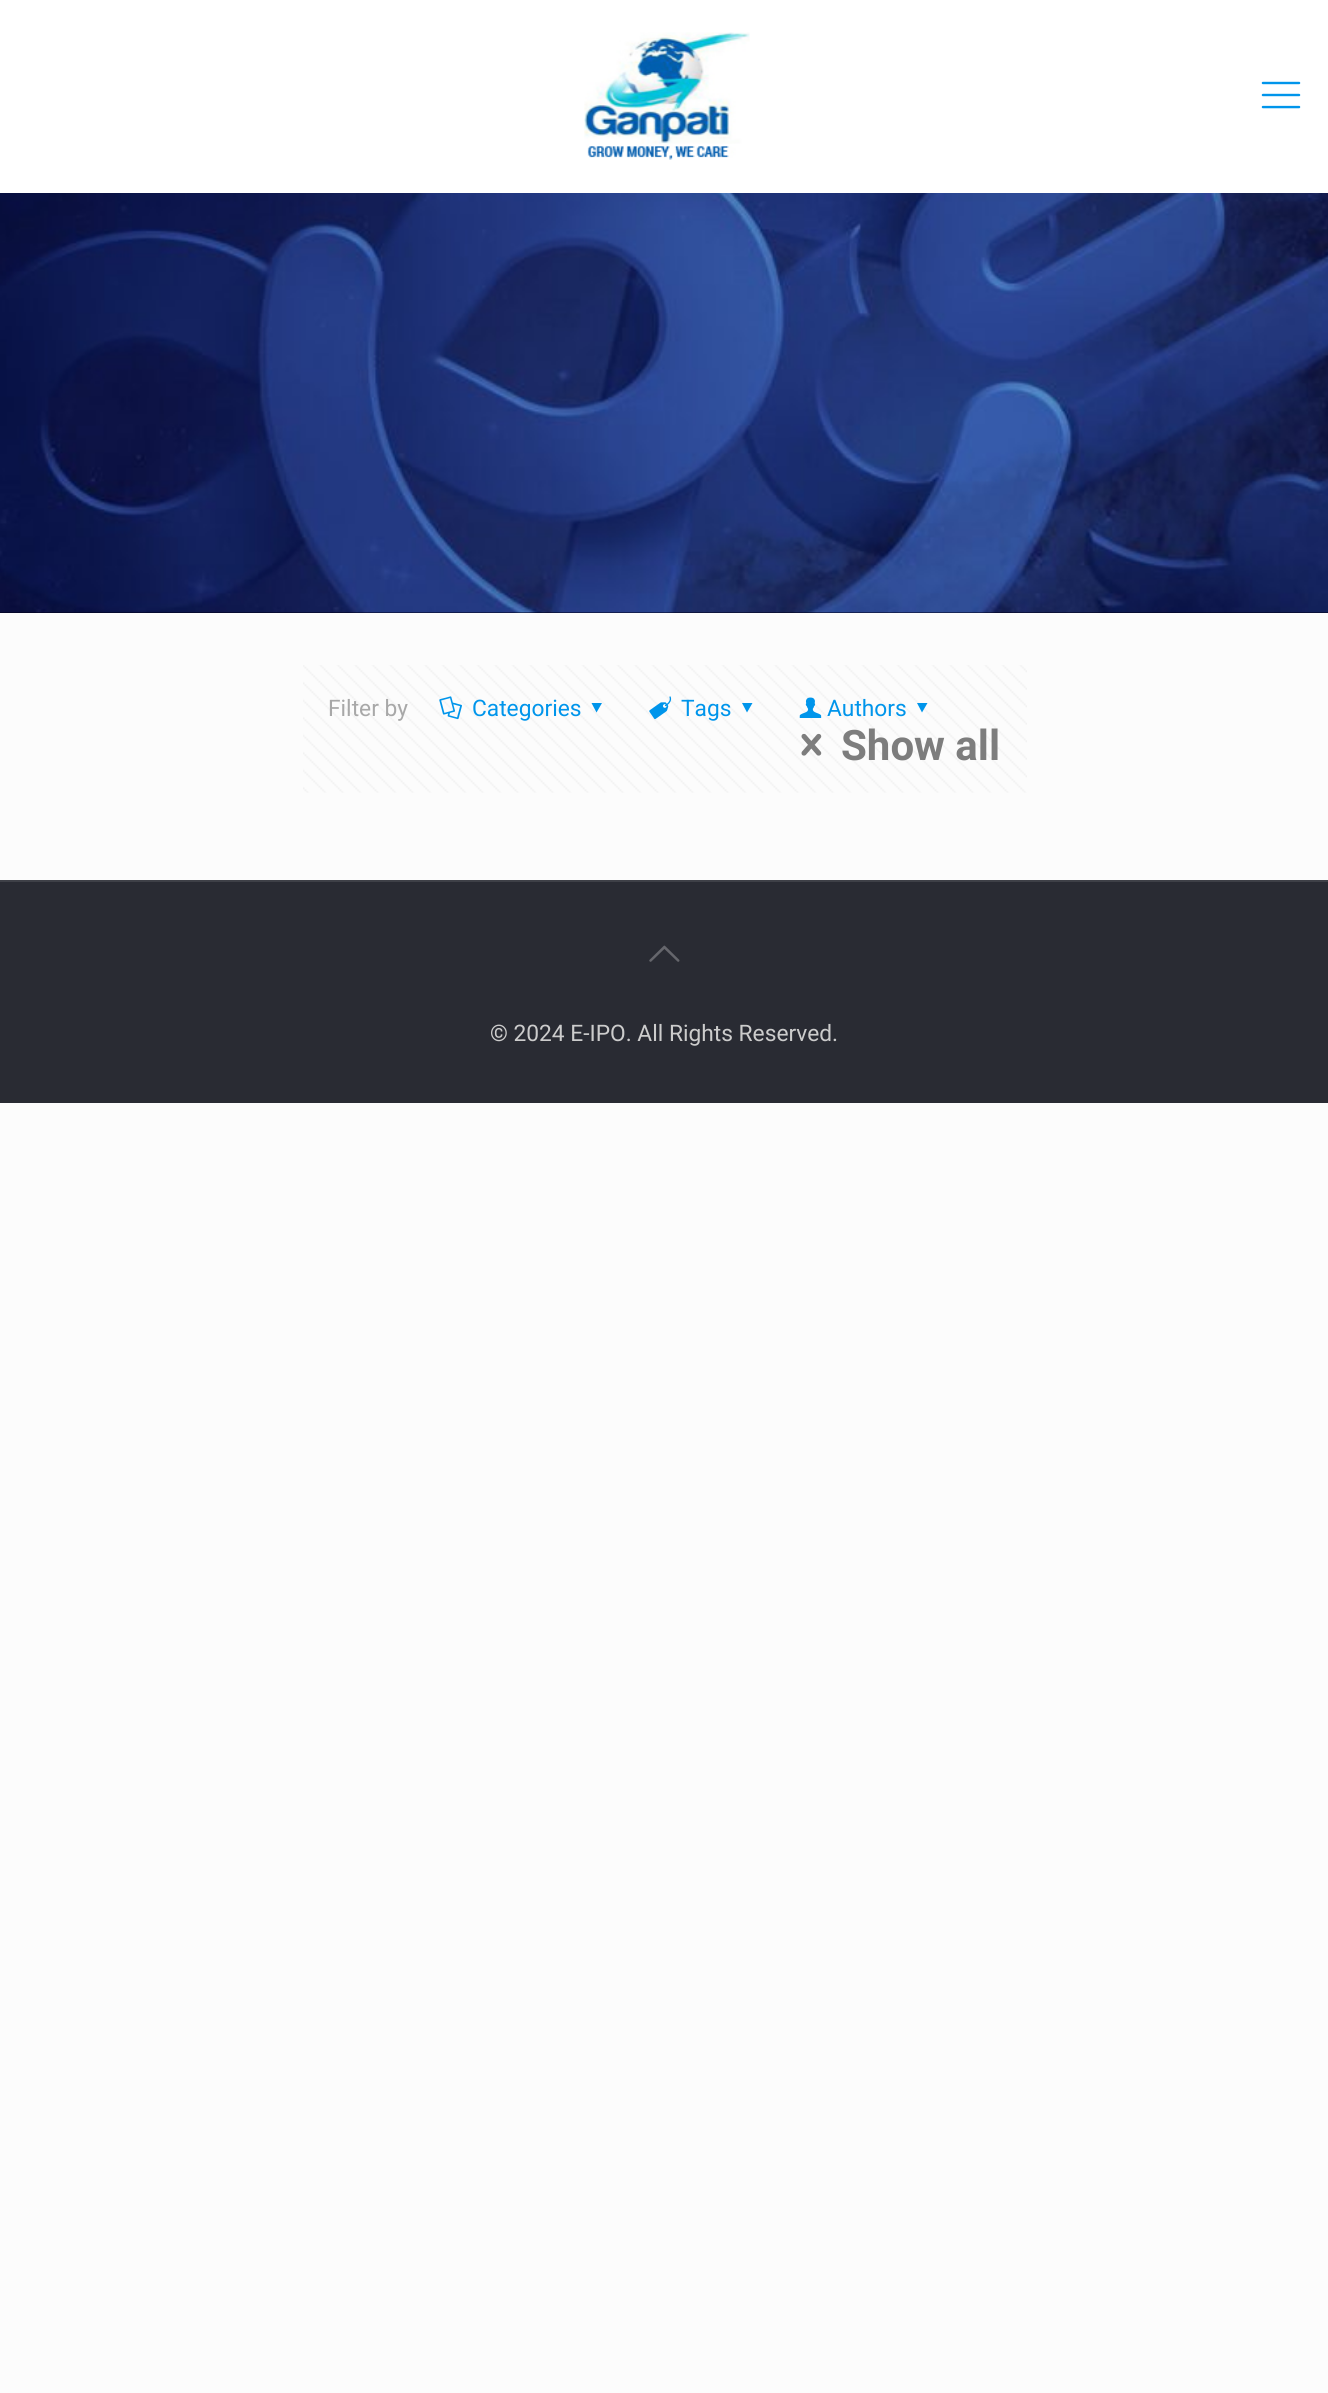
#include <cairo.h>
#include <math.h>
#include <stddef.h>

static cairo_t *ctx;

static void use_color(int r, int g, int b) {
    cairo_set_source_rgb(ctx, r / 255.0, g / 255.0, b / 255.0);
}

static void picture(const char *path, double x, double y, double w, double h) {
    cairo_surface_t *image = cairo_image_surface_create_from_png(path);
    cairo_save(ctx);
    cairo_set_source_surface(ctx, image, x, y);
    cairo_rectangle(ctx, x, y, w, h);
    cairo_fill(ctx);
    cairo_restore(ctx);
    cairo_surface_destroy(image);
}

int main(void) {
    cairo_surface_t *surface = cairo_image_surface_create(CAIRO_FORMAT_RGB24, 1328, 2393);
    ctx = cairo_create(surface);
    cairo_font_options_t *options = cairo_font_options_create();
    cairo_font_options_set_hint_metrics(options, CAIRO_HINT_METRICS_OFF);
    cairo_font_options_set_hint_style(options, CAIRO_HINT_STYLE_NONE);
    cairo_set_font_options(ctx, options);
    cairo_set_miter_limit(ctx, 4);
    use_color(252, 252, 252);
    cairo_paint(ctx);
    use_color(0, 1, 25);
    cairo_rectangle(ctx, 0, 612, 1328, 1);
    cairo_fill(ctx);
    picture("img1.png", 0, 193, 1328, 420);
    use_color(255, 255, 255);
    cairo_rectangle(ctx, 0, 0, 1328, 193);
    cairo_fill(ctx);
    picture("img2.png", 584, 32, 166, 128);
    picture("img3.png", 1261, 81, 40, 28);
    picture("img4.png", 303, 665, 724, 128);
    cairo_select_font_face(ctx, "Roboto", CAIRO_FONT_SLANT_NORMAL, CAIRO_FONT_WEIGHT_NORMAL);
    cairo_set_font_size(ctx, 22.75);
    use_color(168, 168, 168);
    cairo_move_to(ctx, 328, 716);
    cairo_show_text(ctx, "Filter by");
    picture("img5.png", 439, 696, 23, 24);
    use_color(0, 149, 235);
    cairo_move_to(ctx, 472, 716);
    cairo_show_text(ctx, "Categories");
    cairo_new_path(ctx);
    cairo_move_to(ctx, 602, 703);
    cairo_line_to(ctx, 596.5, 712.5);
    cairo_line_to(ctx, 591.5, 703);
    cairo_close_path(ctx);
    cairo_fill(ctx);
    picture("img6.png", 649, 696, 23, 24);
    cairo_move_to(ctx, 681, 716);
    cairo_show_text(ctx, "Tags");
    cairo_new_path(ctx);
    cairo_move_to(ctx, 752.5, 703);
    cairo_line_to(ctx, 747, 712.5);
    cairo_line_to(ctx, 742, 703);
    cairo_close_path(ctx);
    cairo_fill(ctx);
    picture("img7.png", 799, 697, 23, 21);
    cairo_move_to(ctx, 827, 716);
    cairo_show_text(ctx, "Authors");
    cairo_new_path(ctx);
    cairo_move_to(ctx, 927.5, 703);
    cairo_line_to(ctx, 922, 712.5);
    cairo_line_to(ctx, 917, 703);
    cairo_close_path(ctx);
    cairo_fill(ctx);
    picture("img8.png", 801, 733, 21, 23);
    cairo_select_font_face(ctx, "Roboto", CAIRO_FONT_SLANT_NORMAL, CAIRO_FONT_WEIGHT_BOLD);
    cairo_set_font_size(ctx, 42);
    use_color(125, 125, 125);
    cairo_move_to(ctx, 841, 760);
    cairo_show_text(ctx, "Show all");
    use_color(41, 43, 51);
    cairo_rectangle(ctx, 0, 882, 1328, 221);
    cairo_fill(ctx);
    use_color(62, 64, 71);
    cairo_rectangle(ctx, 0, 880, 1328, 2);
    cairo_fill(ctx);
    picture("img9.png", 649, 945, 31, 17);
    cairo_select_font_face(ctx, "Roboto", CAIRO_FONT_SLANT_NORMAL, CAIRO_FONT_WEIGHT_NORMAL);
    cairo_set_font_size(ctx, 22.75);
    use_color(204, 204, 204);
    cairo_move_to(ctx, 490, 1041);
    cairo_show_text(ctx, "© 2024 E-IPO. All Rights Reserved.");
    cairo_surface_write_to_png(surface, "result.png");
    cairo_font_options_destroy(options);
    cairo_destroy(ctx);
    cairo_surface_destroy(surface);
    return 0;
}
